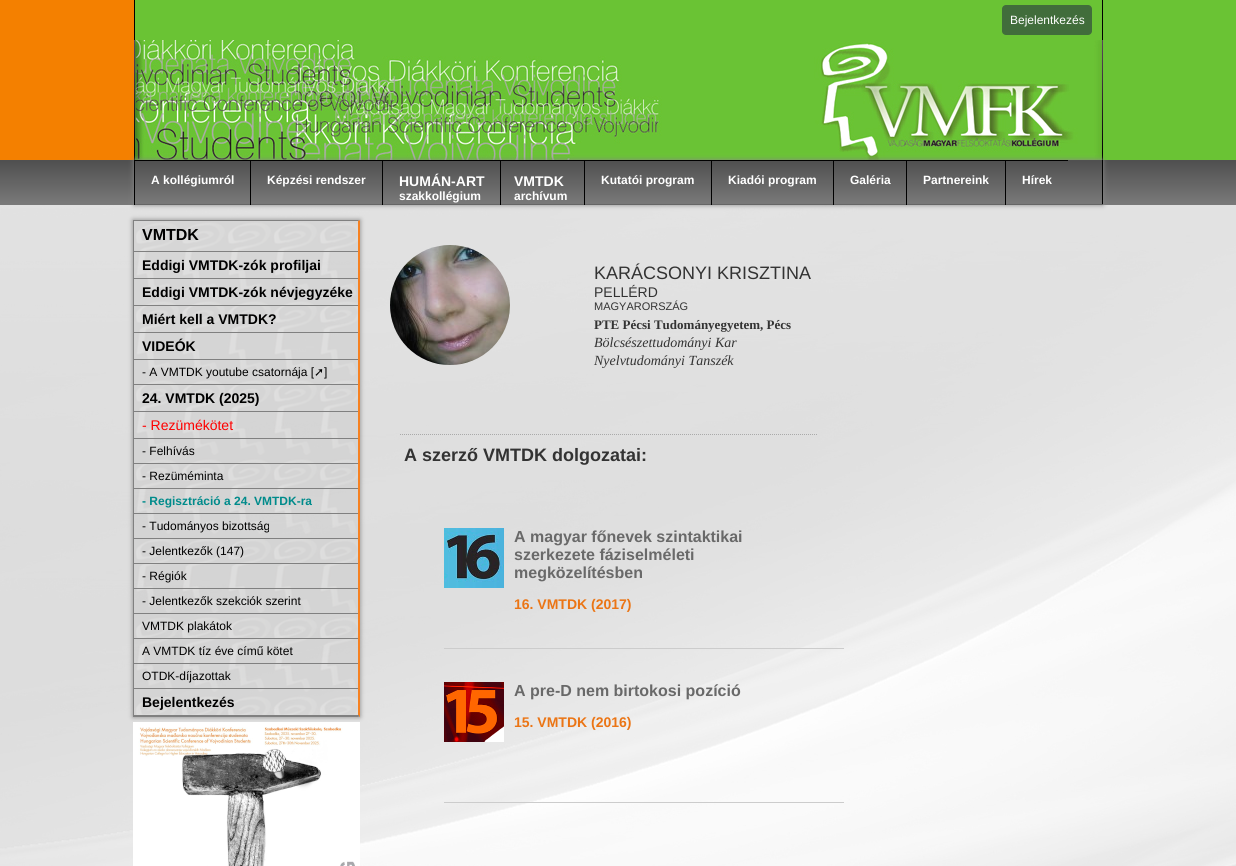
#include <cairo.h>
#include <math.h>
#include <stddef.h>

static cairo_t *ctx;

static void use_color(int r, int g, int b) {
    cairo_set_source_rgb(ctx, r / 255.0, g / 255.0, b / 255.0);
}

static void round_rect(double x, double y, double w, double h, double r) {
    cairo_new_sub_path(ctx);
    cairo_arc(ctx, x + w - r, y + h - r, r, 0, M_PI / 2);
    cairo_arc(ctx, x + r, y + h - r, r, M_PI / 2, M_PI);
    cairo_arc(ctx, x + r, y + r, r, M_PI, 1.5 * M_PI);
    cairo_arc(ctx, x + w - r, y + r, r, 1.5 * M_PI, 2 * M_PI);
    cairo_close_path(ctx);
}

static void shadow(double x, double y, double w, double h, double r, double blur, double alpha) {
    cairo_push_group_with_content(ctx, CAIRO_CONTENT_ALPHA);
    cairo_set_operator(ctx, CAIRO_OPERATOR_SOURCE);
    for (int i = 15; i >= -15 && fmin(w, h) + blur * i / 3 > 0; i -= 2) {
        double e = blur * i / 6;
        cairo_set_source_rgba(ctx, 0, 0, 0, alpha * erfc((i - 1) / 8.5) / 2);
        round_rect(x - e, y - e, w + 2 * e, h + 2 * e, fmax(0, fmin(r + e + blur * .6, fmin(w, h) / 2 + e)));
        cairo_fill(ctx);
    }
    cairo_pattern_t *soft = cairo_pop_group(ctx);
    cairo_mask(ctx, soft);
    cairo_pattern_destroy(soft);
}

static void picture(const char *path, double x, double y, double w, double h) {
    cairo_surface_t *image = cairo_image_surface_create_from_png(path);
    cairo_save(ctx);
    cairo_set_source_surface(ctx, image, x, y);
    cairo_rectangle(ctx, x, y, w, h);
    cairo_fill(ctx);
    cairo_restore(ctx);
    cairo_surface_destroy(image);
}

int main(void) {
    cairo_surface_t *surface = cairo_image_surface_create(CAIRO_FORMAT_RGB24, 1236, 866);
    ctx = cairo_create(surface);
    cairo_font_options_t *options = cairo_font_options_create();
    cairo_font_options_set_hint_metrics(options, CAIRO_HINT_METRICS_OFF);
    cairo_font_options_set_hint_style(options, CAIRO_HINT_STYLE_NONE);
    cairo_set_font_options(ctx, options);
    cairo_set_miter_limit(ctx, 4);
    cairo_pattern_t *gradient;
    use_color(255, 255, 255);
    cairo_paint(ctx);
    picture("img1.png", 0, 205, 1236, 661);
    use_color(244, 128, 0);
    cairo_rectangle(ctx, 0, 0, 134, 40);
    cairo_fill(ctx);
    use_color(106, 195, 52);
    cairo_rectangle(ctx, 135, 0, 967, 40);
    cairo_fill(ctx);
    use_color(0, 0, 0);
    cairo_rectangle(ctx, 1102, 0, 1, 40);
    cairo_fill(ctx);
    cairo_rectangle(ctx, 134, 0, 1, 40);
    cairo_fill(ctx);
    use_color(65, 109, 59);
    round_rect(1002, 5, 90, 30, 4);
    cairo_fill(ctx);
    cairo_select_font_face(ctx, "Liberation Sans", CAIRO_FONT_SLANT_NORMAL, CAIRO_FONT_WEIGHT_NORMAL);
    cairo_set_font_size(ctx, 12);
    use_color(255, 255, 255);
    cairo_move_to(ctx, 1010, 24);
    cairo_show_text(ctx, "Bejelentkezés");
    use_color(106, 195, 52);
    cairo_rectangle(ctx, 1103, 0, 133, 40);
    cairo_fill(ctx);
    picture("img2.png", 0, 40, 1236, 120);
    picture("img3.png", 134, 40, 969, 120);
    gradient = cairo_pattern_create_linear(618, 160, 618, 205);
    cairo_pattern_add_color_stop_rgba(gradient, 0, 0.31, 0.31, 0.31, 1);
    cairo_pattern_add_color_stop_rgba(gradient, 1, 0.478, 0.478, 0.478, 1);
    cairo_set_source(ctx, gradient);
    cairo_pattern_destroy(gradient);
    cairo_rectangle(ctx, 0, 160, 1236, 45);
    cairo_fill(ctx);
    cairo_save(ctx);
    cairo_set_fill_rule(ctx, CAIRO_FILL_RULE_EVEN_ODD);
    cairo_new_path(ctx);
    cairo_move_to(ctx, 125, 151);
    cairo_line_to(ctx, 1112, 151);
    cairo_line_to(ctx, 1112, 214);
    cairo_line_to(ctx, 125, 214);
    cairo_close_path(ctx);
    cairo_move_to(ctx, 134, 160);
    cairo_line_to(ctx, 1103, 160);
    cairo_line_to(ctx, 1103, 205);
    cairo_line_to(ctx, 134, 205);
    cairo_close_path(ctx);
    cairo_clip(ctx);
    use_color(136, 136, 136);
    shadow(134, 160, 969, 45, 0, 2.5, 1);
    cairo_restore(ctx);
    use_color(0, 0, 0);
    cairo_rectangle(ctx, 1102, 160, 1, 45);
    cairo_fill(ctx);
    use_color(102, 102, 102);
    cairo_rectangle(ctx, 134, 204, 969, 1);
    cairo_fill(ctx);
    use_color(0, 0, 0);
    cairo_rectangle(ctx, 134, 160, 1, 45);
    cairo_fill(ctx);
    cairo_rectangle(ctx, 135, 160, 933, 1);
    cairo_fill(ctx);
    cairo_select_font_face(ctx, "Liberation Sans", CAIRO_FONT_SLANT_NORMAL, CAIRO_FONT_WEIGHT_BOLD);
    use_color(255, 255, 255);
    cairo_move_to(ctx, 151, 184);
    cairo_show_text(ctx, "A kollégiumról");
    use_color(0, 0, 0);
    cairo_rectangle(ctx, 250, 160, 1, 45);
    cairo_fill(ctx);
    use_color(255, 255, 255);
    cairo_move_to(ctx, 267, 184);
    cairo_show_text(ctx, "Képzési rendszer");
    use_color(0, 0, 0);
    cairo_rectangle(ctx, 382, 160, 1, 45);
    cairo_fill(ctx);
    cairo_set_font_size(ctx, 14);
    use_color(255, 255, 255);
    cairo_move_to(ctx, 399, 186);
    cairo_show_text(ctx, "HUMÁN-ART");
    cairo_set_font_size(ctx, 12);
    cairo_move_to(ctx, 399, 200);
    cairo_show_text(ctx, "szakkollégium");
    use_color(0, 0, 0);
    cairo_rectangle(ctx, 500, 160, 1, 45);
    cairo_fill(ctx);
    cairo_set_font_size(ctx, 14);
    use_color(255, 255, 255);
    cairo_move_to(ctx, 514, 186);
    cairo_show_text(ctx, "VMTDK");
    cairo_set_font_size(ctx, 12);
    cairo_move_to(ctx, 514, 200);
    cairo_show_text(ctx, "archívum");
    use_color(0, 0, 0);
    cairo_rectangle(ctx, 584, 160, 1, 45);
    cairo_fill(ctx);
    use_color(255, 255, 255);
    cairo_move_to(ctx, 601, 184);
    cairo_show_text(ctx, "Kutatói program");
    use_color(0, 0, 0);
    cairo_rectangle(ctx, 711, 160, 1, 45);
    cairo_fill(ctx);
    use_color(255, 255, 255);
    cairo_move_to(ctx, 728, 184);
    cairo_show_text(ctx, "Kiadói program");
    use_color(0, 0, 0);
    cairo_rectangle(ctx, 833, 160, 1, 45);
    cairo_fill(ctx);
    use_color(255, 255, 255);
    cairo_move_to(ctx, 850, 184);
    cairo_show_text(ctx, "Galéria");
    use_color(0, 0, 0);
    cairo_rectangle(ctx, 906, 160, 1, 45);
    cairo_fill(ctx);
    use_color(255, 255, 255);
    cairo_move_to(ctx, 923, 184);
    cairo_show_text(ctx, "Partnereink");
    use_color(0, 0, 0);
    cairo_rectangle(ctx, 1005, 160, 1, 45);
    cairo_fill(ctx);
    use_color(255, 255, 255);
    cairo_move_to(ctx, 1022, 184);
    cairo_show_text(ctx, "Hírek");
    cairo_save(ctx);
    cairo_set_fill_rule(ctx, CAIRO_FILL_RULE_EVEN_ODD);
    cairo_new_path(ctx);
    cairo_move_to(ctx, 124, 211);
    cairo_line_to(ctx, 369, 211);
    cairo_line_to(ctx, 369, 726);
    cairo_line_to(ctx, 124, 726);
    cairo_close_path(ctx);
    cairo_move_to(ctx, 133, 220);
    cairo_line_to(ctx, 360, 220);
    cairo_line_to(ctx, 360, 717);
    cairo_line_to(ctx, 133, 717);
    cairo_close_path(ctx);
    cairo_clip(ctx);
    use_color(136, 136, 136);
    shadow(133, 220, 227, 497, 0, 2.5, 1);
    cairo_restore(ctx);
    picture("img4.png", 134, 220, 226, 497);
    use_color(128, 128, 128);
    cairo_new_path(ctx);
    cairo_move_to(ctx, 133, 220);
    cairo_line_to(ctx, 360, 220);
    cairo_line_to(ctx, 358, 221);
    cairo_line_to(ctx, 134, 221);
    cairo_close_path(ctx);
    cairo_fill(ctx);
    use_color(246, 129, 33);
    cairo_new_path(ctx);
    cairo_move_to(ctx, 360, 220);
    cairo_line_to(ctx, 360, 717);
    cairo_line_to(ctx, 358, 716);
    cairo_line_to(ctx, 358, 221);
    cairo_close_path(ctx);
    cairo_fill(ctx);
    use_color(128, 128, 128);
    cairo_new_path(ctx);
    cairo_move_to(ctx, 360, 717);
    cairo_line_to(ctx, 133, 717);
    cairo_line_to(ctx, 134, 716);
    cairo_line_to(ctx, 358, 716);
    cairo_close_path(ctx);
    cairo_fill(ctx);
    cairo_rectangle(ctx, 133, 220, 1, 497);
    cairo_fill(ctx);
    cairo_set_font_size(ctx, 16);
    use_color(0, 0, 0);
    cairo_move_to(ctx, 142, 240);
    cairo_show_text(ctx, "VMTDK");
    use_color(128, 128, 128);
    cairo_rectangle(ctx, 134, 715, 225, 1);
    cairo_fill(ctx);
    cairo_rectangle(ctx, 134, 251, 224, 1);
    cairo_fill(ctx);
    cairo_set_font_size(ctx, 14);
    use_color(0, 0, 0);
    cairo_move_to(ctx, 142, 270);
    cairo_show_text(ctx, "Eddigi VMTDK-zók profiljai");
    use_color(128, 128, 128);
    cairo_rectangle(ctx, 134, 278, 224, 1);
    cairo_fill(ctx);
    use_color(0, 0, 0);
    cairo_move_to(ctx, 142, 297);
    cairo_show_text(ctx, "Eddigi VMTDK-zók névjegyzéke");
    use_color(128, 128, 128);
    cairo_rectangle(ctx, 134, 305, 224, 1);
    cairo_fill(ctx);
    use_color(0, 0, 0);
    cairo_move_to(ctx, 142, 324);
    cairo_show_text(ctx, "Miért kell a VMTDK?");
    use_color(128, 128, 128);
    cairo_rectangle(ctx, 134, 332, 224, 1);
    cairo_fill(ctx);
    use_color(0, 0, 0);
    cairo_move_to(ctx, 142, 351);
    cairo_show_text(ctx, "VIDEÓK");
    use_color(128, 128, 128);
    cairo_rectangle(ctx, 134, 359, 224, 1);
    cairo_fill(ctx);
    cairo_select_font_face(ctx, "Liberation Sans", CAIRO_FONT_SLANT_NORMAL, CAIRO_FONT_WEIGHT_NORMAL);
    cairo_set_font_size(ctx, 12);
    use_color(0, 0, 0);
    cairo_move_to(ctx, 142, 376);
    cairo_show_text(ctx, "- A VMTDK youtube csatornája [");
    cairo_select_font_face(ctx, "DejaVu Sans", CAIRO_FONT_SLANT_NORMAL, CAIRO_FONT_WEIGHT_NORMAL);
    cairo_move_to(ctx, 314, 376);
    cairo_show_text(ctx, "➚");
    cairo_select_font_face(ctx, "Liberation Sans", CAIRO_FONT_SLANT_NORMAL, CAIRO_FONT_WEIGHT_NORMAL);
    cairo_move_to(ctx, 324, 376);
    cairo_show_text(ctx, "]");
    use_color(128, 128, 128);
    cairo_rectangle(ctx, 134, 384, 224, 1);
    cairo_fill(ctx);
    cairo_select_font_face(ctx, "Liberation Sans", CAIRO_FONT_SLANT_NORMAL, CAIRO_FONT_WEIGHT_BOLD);
    cairo_set_font_size(ctx, 14);
    use_color(0, 0, 0);
    cairo_move_to(ctx, 142, 403);
    cairo_show_text(ctx, "24. VMTDK (2025)");
    use_color(128, 128, 128);
    cairo_rectangle(ctx, 134, 411, 224, 1);
    cairo_fill(ctx);
    cairo_select_font_face(ctx, "Liberation Sans", CAIRO_FONT_SLANT_NORMAL, CAIRO_FONT_WEIGHT_NORMAL);
    use_color(255, 0, 0);
    cairo_move_to(ctx, 142, 430);
    cairo_show_text(ctx, "- Rezümékötet");
    use_color(128, 128, 128);
    cairo_rectangle(ctx, 134, 438, 224, 1);
    cairo_fill(ctx);
    cairo_set_font_size(ctx, 12);
    use_color(0, 0, 0);
    cairo_move_to(ctx, 142, 455);
    cairo_show_text(ctx, "- Felhívás");
    use_color(128, 128, 128);
    cairo_rectangle(ctx, 134, 463, 224, 1);
    cairo_fill(ctx);
    use_color(0, 0, 0);
    cairo_move_to(ctx, 142, 480);
    cairo_show_text(ctx, "- Rezüméminta");
    use_color(128, 128, 128);
    cairo_rectangle(ctx, 134, 488, 224, 1);
    cairo_fill(ctx);
    cairo_select_font_face(ctx, "Liberation Sans", CAIRO_FONT_SLANT_NORMAL, CAIRO_FONT_WEIGHT_BOLD);
    use_color(0, 139, 139);
    cairo_move_to(ctx, 142, 505);
    cairo_show_text(ctx, "- Regisztráció a 24. VMTDK-ra");
    use_color(128, 128, 128);
    cairo_rectangle(ctx, 134, 513, 224, 1);
    cairo_fill(ctx);
    cairo_select_font_face(ctx, "Liberation Sans", CAIRO_FONT_SLANT_NORMAL, CAIRO_FONT_WEIGHT_NORMAL);
    use_color(0, 0, 0);
    cairo_move_to(ctx, 142, 530);
    cairo_show_text(ctx, "- Tudományos bizottság");
    use_color(128, 128, 128);
    cairo_rectangle(ctx, 134, 538, 224, 1);
    cairo_fill(ctx);
    use_color(0, 0, 0);
    cairo_move_to(ctx, 142, 555);
    cairo_show_text(ctx, "- Jelentkezők (147)");
    use_color(128, 128, 128);
    cairo_rectangle(ctx, 134, 563, 224, 1);
    cairo_fill(ctx);
    use_color(0, 0, 0);
    cairo_move_to(ctx, 142, 580);
    cairo_show_text(ctx, "- Régiók");
    use_color(128, 128, 128);
    cairo_rectangle(ctx, 134, 588, 224, 1);
    cairo_fill(ctx);
    use_color(0, 0, 0);
    cairo_move_to(ctx, 142, 605);
    cairo_show_text(ctx, "- Jelentkezők szekciók szerint");
    use_color(128, 128, 128);
    cairo_rectangle(ctx, 134, 613, 224, 1);
    cairo_fill(ctx);
    use_color(0, 0, 0);
    cairo_move_to(ctx, 142, 630);
    cairo_show_text(ctx, "VMTDK plakátok");
    use_color(128, 128, 128);
    cairo_rectangle(ctx, 134, 638, 224, 1);
    cairo_fill(ctx);
    use_color(0, 0, 0);
    cairo_move_to(ctx, 142, 655);
    cairo_show_text(ctx, "A VMTDK tíz éve című kötet");
    use_color(128, 128, 128);
    cairo_rectangle(ctx, 134, 663, 224, 1);
    cairo_fill(ctx);
    use_color(0, 0, 0);
    cairo_move_to(ctx, 142, 680);
    cairo_show_text(ctx, "OTDK-díjazottak");
    use_color(128, 128, 128);
    cairo_rectangle(ctx, 134, 688, 224, 1);
    cairo_fill(ctx);
    cairo_select_font_face(ctx, "Liberation Sans", CAIRO_FONT_SLANT_NORMAL, CAIRO_FONT_WEIGHT_BOLD);
    cairo_set_font_size(ctx, 14);
    use_color(0, 0, 0);
    cairo_move_to(ctx, 142, 707);
    cairo_show_text(ctx, "Bejelentkezés");
    picture("img5.png", 133, 722, 227, 144);
    picture("img6.png", 390, 245, 120, 120);
    cairo_select_font_face(ctx, "Liberation Sans", CAIRO_FONT_SLANT_NORMAL, CAIRO_FONT_WEIGHT_NORMAL);
    cairo_set_font_size(ctx, 18);
    use_color(51, 51, 51);
    cairo_move_to(ctx, 594, 279);
    cairo_show_text(ctx, "KARÁCSONYI KRISZTINA");
    cairo_set_font_size(ctx, 14);
    cairo_move_to(ctx, 594, 297);
    cairo_show_text(ctx, "PELLÉRD");
    cairo_set_font_size(ctx, 11);
    cairo_move_to(ctx, 594, 310);
    cairo_show_text(ctx, "MAGYARORSZÁG");
    cairo_select_font_face(ctx, "Liberation Serif", CAIRO_FONT_SLANT_NORMAL, CAIRO_FONT_WEIGHT_BOLD);
    cairo_set_font_size(ctx, 13);
    cairo_move_to(ctx, 594, 329);
    cairo_show_text(ctx, "PTE Pécsi Tudományegyetem, Pécs");
    cairo_select_font_face(ctx, "Liberation Serif", CAIRO_FONT_SLANT_ITALIC, CAIRO_FONT_WEIGHT_NORMAL);
    cairo_set_font_size(ctx, 14);
    cairo_move_to(ctx, 594, 347);
    cairo_show_text(ctx, "Bölcsészettudományi Kar");
    cairo_move_to(ctx, 594, 365);
    cairo_show_text(ctx, "Nyelvtudományi Tanszék");
    cairo_new_path(ctx);
    cairo_move_to(ctx, 400, 434.5);
    cairo_line_to(ctx, 818, 434.5);
    use_color(170, 170, 170);
    cairo_set_line_width(ctx, 1);
    cairo_set_dash(ctx, (double[]){1, 1}, 2, 0);
    cairo_stroke(ctx);
    cairo_select_font_face(ctx, "Liberation Sans", CAIRO_FONT_SLANT_NORMAL, CAIRO_FONT_WEIGHT_BOLD);
    cairo_set_font_size(ctx, 18);
    use_color(51, 51, 51);
    cairo_move_to(ctx, 404, 461);
    cairo_show_text(ctx, "A szerző VMTDK dolgozatai:");
    use_color(204, 204, 204);
    cairo_rectangle(ctx, 444, 648, 400, 1);
    cairo_fill(ctx);
    picture("img7.png", 444, 528, 60, 60);
    cairo_set_font_size(ctx, 16);
    use_color(105, 105, 105);
    cairo_move_to(ctx, 514, 542);
    cairo_show_text(ctx, "A magyar főnevek szintaktikai");
    cairo_move_to(ctx, 514, 560);
    cairo_show_text(ctx, "szerkezete fáziselméleti");
    cairo_move_to(ctx, 514, 578);
    cairo_show_text(ctx, "megközelítésben");
    cairo_set_font_size(ctx, 14);
    use_color(235, 117, 21);
    cairo_move_to(ctx, 514, 609);
    cairo_show_text(ctx, "16. VMTDK (2017)");
    use_color(204, 204, 204);
    cairo_rectangle(ctx, 444, 802, 400, 1);
    cairo_fill(ctx);
    picture("img8.png", 444, 682, 60, 60);
    cairo_set_font_size(ctx, 16);
    use_color(105, 105, 105);
    cairo_move_to(ctx, 514, 696);
    cairo_show_text(ctx, "A pre-D nem birtokosi pozíció");
    cairo_set_font_size(ctx, 14);
    use_color(235, 117, 21);
    cairo_move_to(ctx, 514, 727);
    cairo_show_text(ctx, "15. VMTDK (2016)");
    cairo_surface_write_to_png(surface, "result.png");
    cairo_font_options_destroy(options);
    cairo_destroy(ctx);
    cairo_surface_destroy(surface);
    return 0;
}
